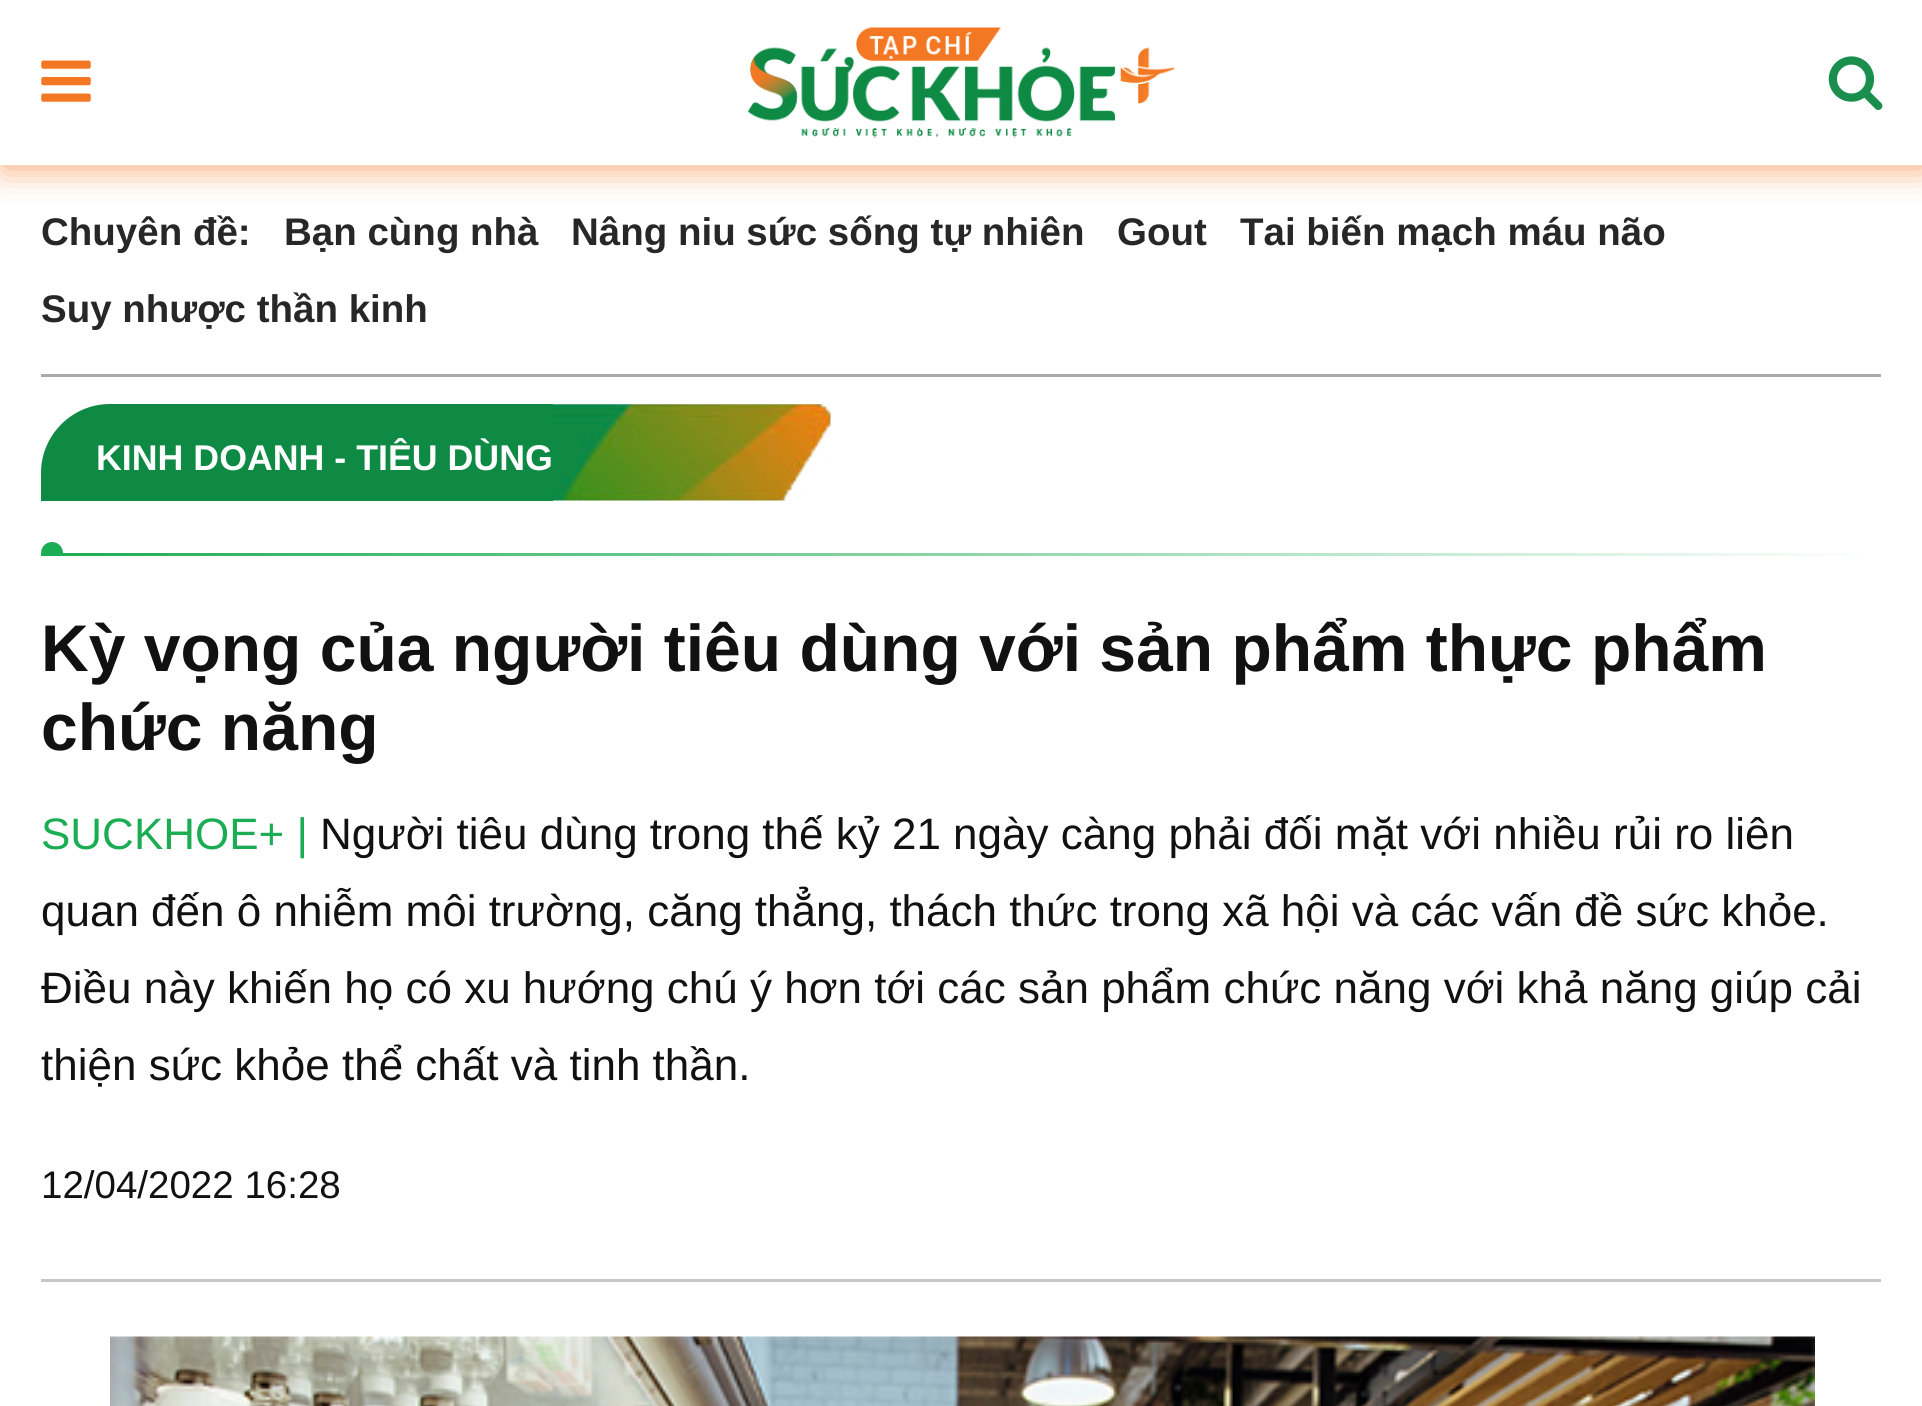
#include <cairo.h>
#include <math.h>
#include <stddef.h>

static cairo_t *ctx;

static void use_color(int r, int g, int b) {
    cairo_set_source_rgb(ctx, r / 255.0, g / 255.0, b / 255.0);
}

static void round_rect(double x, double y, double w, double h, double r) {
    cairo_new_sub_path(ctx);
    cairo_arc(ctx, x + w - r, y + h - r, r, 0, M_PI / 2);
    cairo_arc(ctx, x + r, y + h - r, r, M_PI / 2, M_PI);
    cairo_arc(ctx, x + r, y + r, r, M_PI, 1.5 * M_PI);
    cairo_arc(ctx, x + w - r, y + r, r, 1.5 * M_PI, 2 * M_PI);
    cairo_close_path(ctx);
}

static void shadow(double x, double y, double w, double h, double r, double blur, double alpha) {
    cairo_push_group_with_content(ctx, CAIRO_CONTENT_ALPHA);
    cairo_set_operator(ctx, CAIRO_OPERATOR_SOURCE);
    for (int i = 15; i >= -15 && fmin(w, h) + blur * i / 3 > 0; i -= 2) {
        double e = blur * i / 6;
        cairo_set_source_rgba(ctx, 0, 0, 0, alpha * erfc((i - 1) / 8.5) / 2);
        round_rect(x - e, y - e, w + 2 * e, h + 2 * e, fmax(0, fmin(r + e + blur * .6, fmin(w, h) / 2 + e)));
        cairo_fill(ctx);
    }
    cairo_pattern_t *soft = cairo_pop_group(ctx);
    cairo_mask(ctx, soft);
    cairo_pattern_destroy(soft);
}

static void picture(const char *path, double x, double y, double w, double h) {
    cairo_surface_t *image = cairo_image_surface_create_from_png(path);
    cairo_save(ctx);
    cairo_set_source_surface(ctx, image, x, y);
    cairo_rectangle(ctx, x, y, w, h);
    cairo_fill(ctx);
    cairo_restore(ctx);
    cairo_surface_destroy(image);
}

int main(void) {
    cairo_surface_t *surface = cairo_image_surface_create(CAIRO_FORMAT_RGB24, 1922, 1406);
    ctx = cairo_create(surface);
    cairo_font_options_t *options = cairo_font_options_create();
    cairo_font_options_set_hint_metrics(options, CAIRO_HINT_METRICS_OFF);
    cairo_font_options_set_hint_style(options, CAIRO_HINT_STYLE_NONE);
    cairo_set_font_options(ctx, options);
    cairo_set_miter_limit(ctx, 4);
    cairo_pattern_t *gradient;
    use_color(255, 255, 255);
    cairo_paint(ctx);
    cairo_save(ctx);
    cairo_rectangle(ctx, 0, 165, 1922, 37);
    cairo_clip(ctx);
    use_color(244, 120, 36);
    shadow(3, 3, 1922, 165, 0, 18, 0.67);
    cairo_restore(ctx);
    picture("img1.png", 41, 60, 50, 42);
    picture("img2.png", 748, 27, 427, 111);
    picture("img3.png", 1828, 56, 55, 54);
    use_color(170, 170, 170);
    cairo_rectangle(ctx, 41, 374, 1840, 3);
    cairo_fill(ctx);
    cairo_select_font_face(ctx, "Liberation Sans", CAIRO_FONT_SLANT_NORMAL, CAIRO_FONT_WEIGHT_BOLD);
    cairo_set_font_size(ctx, 38.5);
    use_color(39, 39, 39);
    cairo_move_to(ctx, 41, 245);
    cairo_show_text(ctx, "Chuyên đề:");
    cairo_move_to(ctx, 284, 245);
    cairo_show_text(ctx, "Bạn cùng nhà");
    cairo_move_to(ctx, 571, 245);
    cairo_show_text(ctx, "Nâng niu sức sống tự nhiên");
    cairo_move_to(ctx, 1117, 245);
    cairo_show_text(ctx, "Gout");
    cairo_move_to(ctx, 1240, 245);
    cairo_show_text(ctx, "Tai biến mạch máu não");
    cairo_move_to(ctx, 41, 322);
    cairo_show_text(ctx, "Suy nhược thần kinh");
    use_color(14, 138, 68);
    cairo_new_path(ctx);
    cairo_move_to(ctx, 110, 404);
    cairo_line_to(ctx, 553, 404);
    cairo_line_to(ctx, 553, 501);
    cairo_line_to(ctx, 41, 501);
    cairo_line_to(ctx, 41, 473);
    cairo_curve_to(ctx, 41, 435, 72, 404, 110, 404);
    cairo_close_path(ctx);
    cairo_fill(ctx);
    cairo_set_font_size(ctx, 35.75);
    use_color(255, 255, 255);
    cairo_move_to(ctx, 96, 470);
    cairo_show_text(ctx, "KINH DOANH - TIÊU DÙNG");
    picture("img4.png", 553, 404, 278, 97);
    cairo_save(ctx);
    cairo_new_path(ctx);
    cairo_move_to(ctx, 96, 501);
    cairo_line_to(ctx, 1881, 501);
    cairo_line_to(ctx, 1881, 556);
    cairo_line_to(ctx, 41, 556);
    cairo_curve_to(ctx, 41, 525.5, 65.5, 501, 96, 501);
    cairo_close_path(ctx);
    cairo_clip(ctx);
    use_color(27, 173, 83);
    cairo_arc(ctx, 52, 553, 11, 0, 2 * M_PI);
    cairo_fill(ctx);
    cairo_restore(ctx);
    gradient = cairo_pattern_create_linear(41, 554, 1881, 554);
    cairo_pattern_add_color_stop_rgba(gradient, 0, 0.106, 0.678, 0.325, 1);
    cairo_pattern_add_color_stop_rgba(gradient, 1, 1, 1, 1, 1);
    cairo_set_source(ctx, gradient);
    cairo_pattern_destroy(gradient);
    cairo_rectangle(ctx, 41, 553, 1820, 3);
    cairo_fill(ctx);
    use_color(198, 198, 198);
    cairo_rectangle(ctx, 41, 1279, 1840, 3);
    cairo_fill(ctx);
    cairo_set_font_size(ctx, 66);
    use_color(17, 17, 17);
    cairo_move_to(ctx, 41, 671);
    cairo_show_text(ctx, "Kỳ vọng của người tiêu dùng với sản phẩm thực phẩm");
    cairo_move_to(ctx, 41, 750);
    cairo_show_text(ctx, "chức năng");
    cairo_select_font_face(ctx, "Liberation Sans", CAIRO_FONT_SLANT_NORMAL, CAIRO_FONT_WEIGHT_NORMAL);
    cairo_set_font_size(ctx, 44);
    use_color(27, 173, 83);
    cairo_move_to(ctx, 41, 849);
    cairo_show_text(ctx, "SUCKHOE+ |");
    use_color(17, 17, 17);
    cairo_move_to(ctx, 320, 849);
    cairo_show_text(ctx, "Người tiêu dùng trong thế kỷ 21 ngày càng phải đối mặt với nhiều rủi ro liên");
    cairo_move_to(ctx, 41, 926);
    cairo_show_text(ctx, "quan đến ô nhiễm môi trường, căng thẳng, thách thức trong xã hội và các vấn đề sức khỏe.");
    cairo_move_to(ctx, 41, 1003);
    cairo_show_text(ctx, "Điều này khiến họ có xu hướng chú ý hơn tới các sản phẩm chức năng với khả năng giúp cải");
    cairo_move_to(ctx, 41, 1080);
    cairo_show_text(ctx, "thiện sức khỏe thể chất và tinh thần.");
    cairo_set_font_size(ctx, 38.5);
    cairo_move_to(ctx, 41, 1198);
    cairo_show_text(ctx, "12/04/2022 16:28");
    picture("img5.png", 110, 1336, 1705, 70);
    cairo_surface_write_to_png(surface, "result.png");
    cairo_font_options_destroy(options);
    cairo_destroy(ctx);
    cairo_surface_destroy(surface);
    return 0;
}
